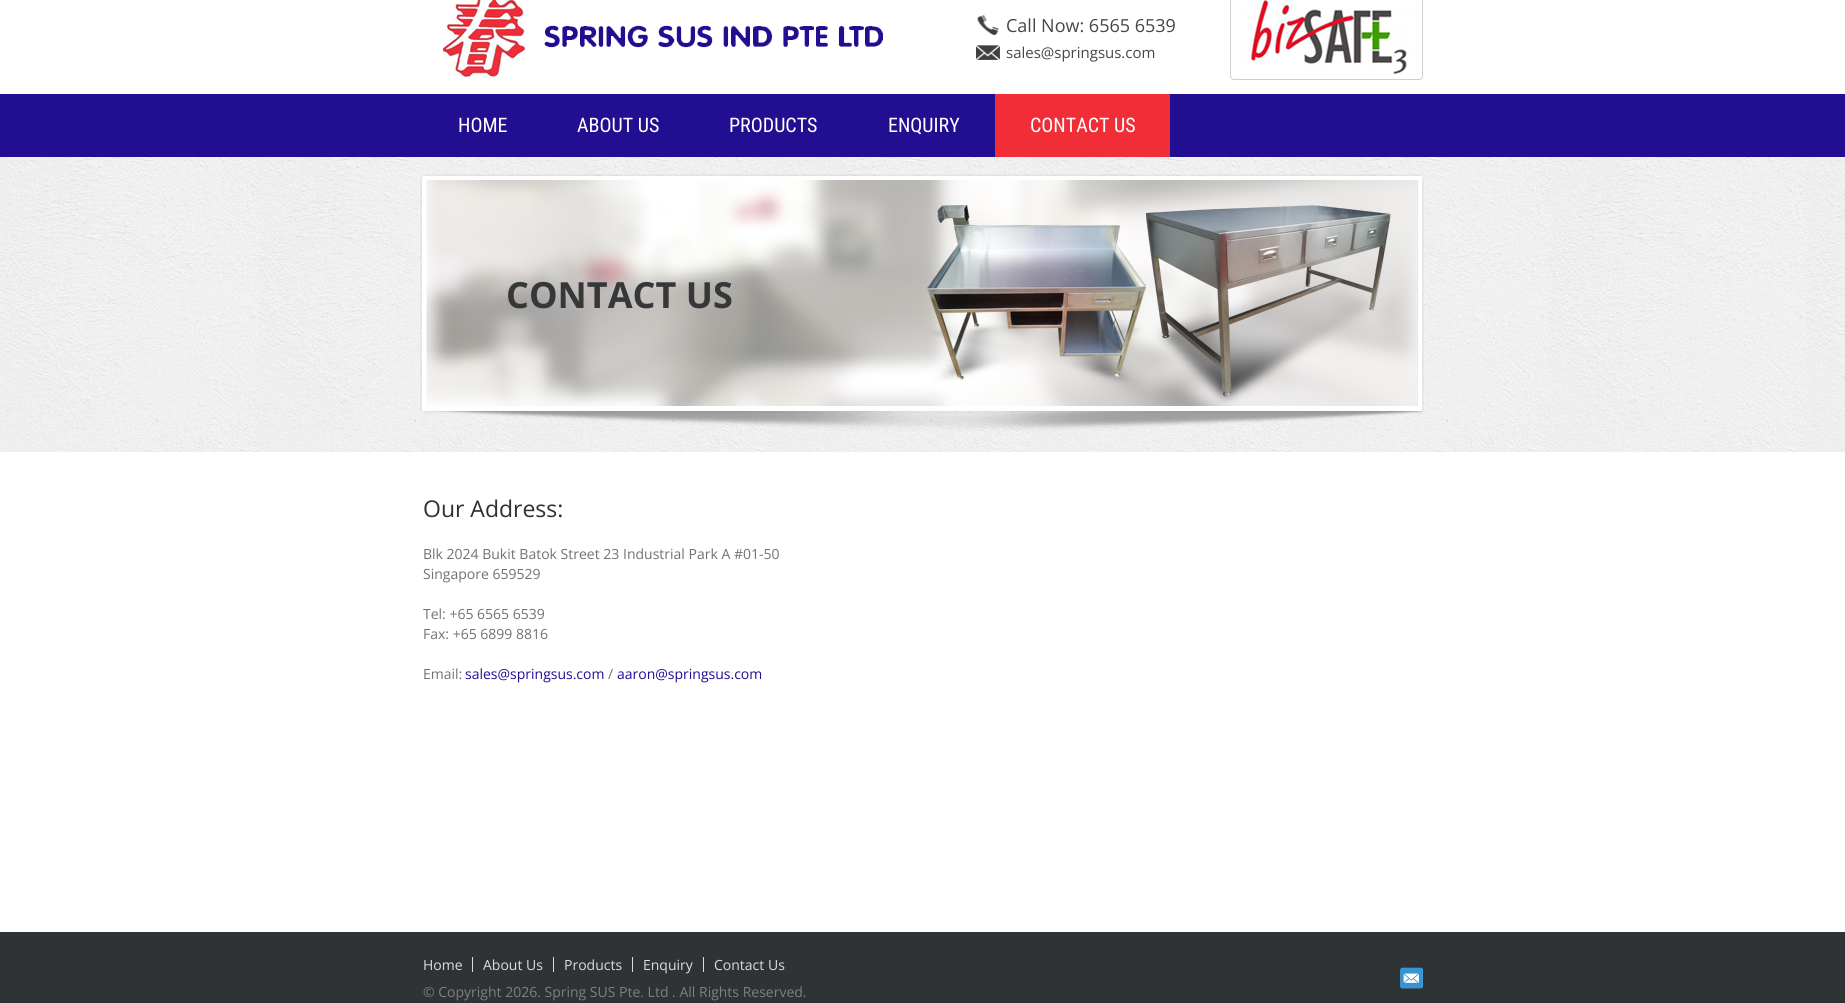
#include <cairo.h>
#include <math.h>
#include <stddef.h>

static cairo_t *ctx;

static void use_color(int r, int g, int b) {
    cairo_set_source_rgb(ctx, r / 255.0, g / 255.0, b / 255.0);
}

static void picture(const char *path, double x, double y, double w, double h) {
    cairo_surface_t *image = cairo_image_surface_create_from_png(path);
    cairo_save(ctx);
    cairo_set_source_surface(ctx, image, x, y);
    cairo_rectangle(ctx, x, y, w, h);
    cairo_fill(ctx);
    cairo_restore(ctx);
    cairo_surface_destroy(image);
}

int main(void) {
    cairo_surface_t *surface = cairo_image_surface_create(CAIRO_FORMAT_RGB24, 1845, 1003);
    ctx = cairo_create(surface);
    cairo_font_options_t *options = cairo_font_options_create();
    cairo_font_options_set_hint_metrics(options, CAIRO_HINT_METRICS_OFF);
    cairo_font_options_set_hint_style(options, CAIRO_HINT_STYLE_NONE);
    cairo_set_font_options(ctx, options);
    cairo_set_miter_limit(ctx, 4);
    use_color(255, 255, 255);
    cairo_paint(ctx);
    use_color(34, 14, 145);
    cairo_rectangle(ctx, 0, 94, 1845, 63);
    cairo_fill(ctx);
    picture("img1.png", 443, 0, 440, 77);
    picture("img2.png", 977, 15, 22, 20);
    cairo_select_font_face(ctx, "Open Sans", CAIRO_FONT_SLANT_NORMAL, CAIRO_FONT_WEIGHT_NORMAL);
    cairo_set_font_size(ctx, 18);
    use_color(68, 71, 73);
    cairo_move_to(ctx, 1006, 32);
    cairo_show_text(ctx, "Call Now: 6565 6539");
    picture("img3.png", 976, 45, 24, 15);
    cairo_set_font_size(ctx, 15);
    cairo_move_to(ctx, 1006, 58);
    cairo_show_text(ctx, "sales@springsus.com");
    picture("img4.png", 1230, 0, 193, 80);
    cairo_select_font_face(ctx, "Roboto Condensed", CAIRO_FONT_SLANT_NORMAL, CAIRO_FONT_WEIGHT_NORMAL);
    cairo_set_font_size(ctx, 20);
    use_color(255, 255, 255);
    cairo_move_to(ctx, 458, 132);
    cairo_show_text(ctx, "HOME");
    cairo_move_to(ctx, 577, 132);
    cairo_show_text(ctx, "ABOUT US");
    cairo_move_to(ctx, 729, 132);
    cairo_show_text(ctx, "PRODUCTS");
    cairo_move_to(ctx, 888, 132);
    cairo_show_text(ctx, "ENQUIRY");
    use_color(241, 45, 55);
    cairo_rectangle(ctx, 995, 94, 175, 63);
    cairo_fill(ctx);
    use_color(255, 255, 255);
    cairo_move_to(ctx, 1030, 132);
    cairo_show_text(ctx, "CONTACT US");
    picture("img5.png", 0, 157, 1845, 295);
    picture("img6.png", 423, 411, 1000, 20);
    picture("img7.png", 420, 174, 1005, 6);
    picture("img8.png", 420, 180, 1004, 231);
    picture("img9.png", 426, 180, 993, 226);
    cairo_select_font_face(ctx, "Open Sans", CAIRO_FONT_SLANT_NORMAL, CAIRO_FONT_WEIGHT_BOLD);
    cairo_set_font_size(ctx, 36);
    use_color(54, 55, 56);
    cairo_move_to(ctx, 506, 308);
    cairo_show_text(ctx, "CONTACT US");
    cairo_select_font_face(ctx, "Open Sans", CAIRO_FONT_SLANT_NORMAL, CAIRO_FONT_WEIGHT_NORMAL);
    cairo_set_font_size(ctx, 23);
    use_color(48, 48, 48);
    cairo_move_to(ctx, 423, 517);
    cairo_show_text(ctx, "Our Address:");
    cairo_set_font_size(ctx, 14);
    use_color(114, 114, 114);
    cairo_move_to(ctx, 423, 559);
    cairo_show_text(ctx, "Blk 2024 Bukit Batok Street 23 Industrial Park A #01-50");
    cairo_move_to(ctx, 423, 579);
    cairo_show_text(ctx, "Singapore 659529");
    cairo_move_to(ctx, 423, 619);
    cairo_show_text(ctx, "Tel: +65 6565 6539");
    cairo_move_to(ctx, 423, 639);
    cairo_show_text(ctx, "Fax: +65 6899 8816");
    cairo_move_to(ctx, 423, 679);
    cairo_show_text(ctx, "Email:");
    use_color(34, 14, 145);
    cairo_move_to(ctx, 465, 679);
    cairo_show_text(ctx, "sales@springsus.com");
    use_color(114, 114, 114);
    cairo_move_to(ctx, 608, 679);
    cairo_show_text(ctx, "/");
    use_color(34, 14, 145);
    cairo_move_to(ctx, 617, 679);
    cairo_show_text(ctx, "aaron@springsus.com");
    use_color(47, 51, 53);
    cairo_rectangle(ctx, 0, 932, 1845, 71);
    cairo_fill(ctx);
    use_color(221, 221, 221);
    cairo_move_to(ctx, 423, 970);
    cairo_show_text(ctx, "Home");
    cairo_rectangle(ctx, 472, 957, 1, 15);
    cairo_fill(ctx);
    cairo_move_to(ctx, 483, 970);
    cairo_show_text(ctx, "About Us");
    cairo_rectangle(ctx, 553, 957, 1, 15);
    cairo_fill(ctx);
    cairo_move_to(ctx, 564, 970);
    cairo_show_text(ctx, "Products");
    cairo_rectangle(ctx, 632, 957, 1, 15);
    cairo_fill(ctx);
    cairo_move_to(ctx, 643, 970);
    cairo_show_text(ctx, "Enquiry");
    cairo_rectangle(ctx, 703, 957, 1, 15);
    cairo_fill(ctx);
    cairo_move_to(ctx, 714, 970);
    cairo_show_text(ctx, "Contact Us");
    use_color(127, 127, 127);
    cairo_move_to(ctx, 423, 997);
    cairo_show_text(ctx, "© Copyright 2026. Spring SUS Pte. Ltd . All Rights Reserved.");
    picture("img10.png", 1400, 967, 23, 22);
    cairo_surface_write_to_png(surface, "result.png");
    cairo_font_options_destroy(options);
    cairo_destroy(ctx);
    cairo_surface_destroy(surface);
    return 0;
}
